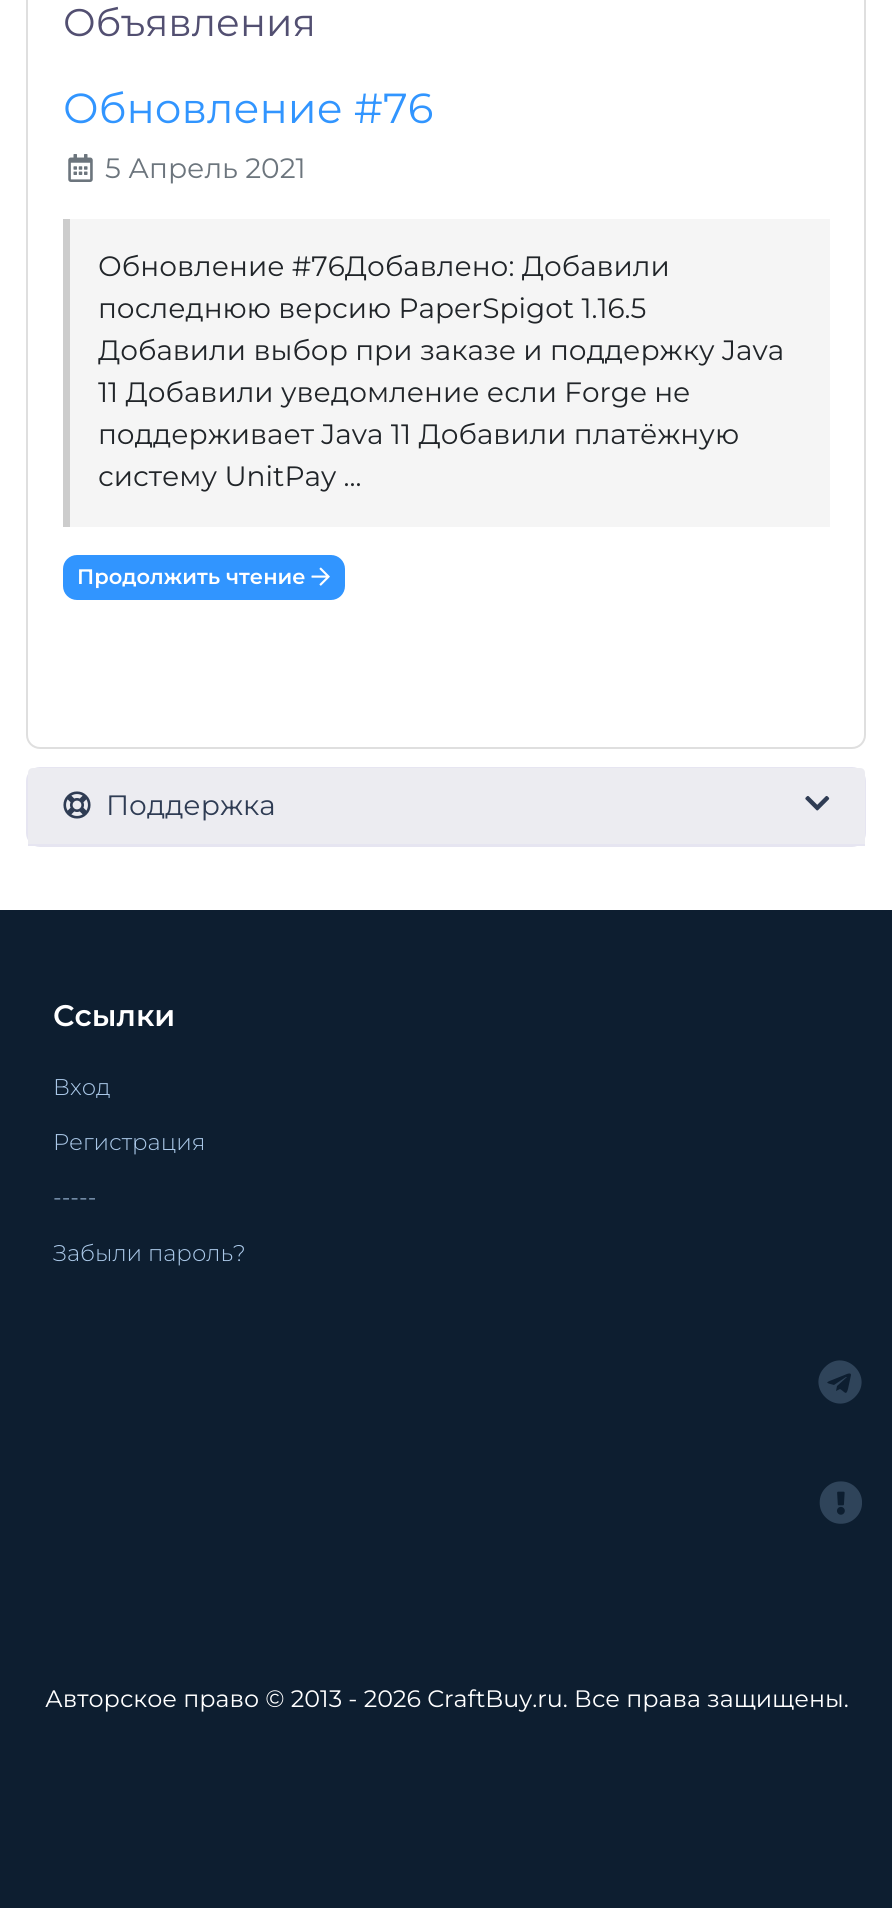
#include <cairo.h>
#include <math.h>
#include <stddef.h>

static cairo_t *ctx;

static void use_color(int r, int g, int b) {
    cairo_set_source_rgb(ctx, r / 255.0, g / 255.0, b / 255.0);
}

static void round_rect(double x, double y, double w, double h, double r) {
    cairo_new_sub_path(ctx);
    cairo_arc(ctx, x + w - r, y + h - r, r, 0, M_PI / 2);
    cairo_arc(ctx, x + r, y + h - r, r, M_PI / 2, M_PI);
    cairo_arc(ctx, x + r, y + r, r, M_PI, 1.5 * M_PI);
    cairo_arc(ctx, x + w - r, y + r, r, 1.5 * M_PI, 2 * M_PI);
    cairo_close_path(ctx);
}

static void picture(const char *path, double x, double y, double w, double h) {
    cairo_surface_t *image = cairo_image_surface_create_from_png(path);
    cairo_save(ctx);
    cairo_set_source_surface(ctx, image, x, y);
    cairo_rectangle(ctx, x, y, w, h);
    cairo_fill(ctx);
    cairo_restore(ctx);
    cairo_surface_destroy(image);
}

int main(void) {
    cairo_surface_t *surface = cairo_image_surface_create(CAIRO_FORMAT_RGB24, 892, 1908);
    ctx = cairo_create(surface);
    cairo_font_options_t *options = cairo_font_options_create();
    cairo_font_options_set_hint_metrics(options, CAIRO_HINT_METRICS_OFF);
    cairo_font_options_set_hint_style(options, CAIRO_HINT_STYLE_NONE);
    cairo_set_font_options(ctx, options);
    cairo_set_miter_limit(ctx, 4);
    use_color(255, 255, 255);
    cairo_paint(ctx);
    round_rect(27, -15, 838, 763, 13);
    use_color(223, 223, 223);
    cairo_stroke(ctx);
    cairo_select_font_face(ctx, "Montserrat Thin", CAIRO_FONT_SLANT_NORMAL, CAIRO_FONT_WEIGHT_NORMAL);
    cairo_set_font_size(ctx, 38.5);
    use_color(82, 79, 113);
    cairo_move_to(ctx, 63, 36);
    cairo_show_text(ctx, "Объявления");
    cairo_set_font_size(ctx, 42);
    use_color(49, 149, 255);
    cairo_move_to(ctx, 63, 123);
    cairo_show_text(ctx, "Обновление #76");
    picture("img1.png", 68, 154, 25, 28);
    cairo_set_font_size(ctx, 28);
    use_color(108, 117, 125);
    cairo_move_to(ctx, 105, 178);
    cairo_show_text(ctx, "5 Апрель 2021");
    use_color(245, 245, 245);
    cairo_rectangle(ctx, 70, 219, 760, 308);
    cairo_fill(ctx);
    use_color(204, 204, 204);
    cairo_rectangle(ctx, 63, 219, 7, 308);
    cairo_fill(ctx);
    use_color(33, 37, 41);
    cairo_move_to(ctx, 98, 276);
    cairo_show_text(ctx, "Обновление #76Добавлено: Добавили");
    cairo_move_to(ctx, 98, 318);
    cairo_show_text(ctx, "последнюю версию PaperSpigot 1.16.5");
    cairo_move_to(ctx, 98, 360);
    cairo_show_text(ctx, "Добавили выбор при заказе и поддержку Java");
    cairo_move_to(ctx, 98, 402);
    cairo_show_text(ctx, "11 Добавили уведомление если Forge не");
    cairo_move_to(ctx, 98, 444);
    cairo_show_text(ctx, "поддерживает Java 11 Добавили платёжную");
    cairo_move_to(ctx, 98, 486);
    cairo_show_text(ctx, "систему UnitPay ...");
    use_color(49, 149, 255);
    round_rect(63, 555, 282, 45, 14);
    cairo_fill(ctx);
    cairo_select_font_face(ctx, "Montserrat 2 Thin", CAIRO_FONT_SLANT_NORMAL, CAIRO_FONT_WEIGHT_NORMAL);
    cairo_set_font_size(ctx, 21);
    use_color(255, 255, 255);
    cairo_move_to(ctx, 77, 584);
    cairo_show_text(ctx, "Продолжить чтение");
    picture("img2.png", 311, 567, 19, 19);
    round_rect(27, 768, 838, 78, 13);
    use_color(230, 229, 241);
    cairo_stroke(ctx);
    use_color(236, 236, 241);
    cairo_new_path(ctx);
    cairo_move_to(ctx, 33, 768);
    cairo_line_to(ctx, 860, 768);
    cairo_curve_to(ctx, 863, 768, 865, 770, 865, 773);
    cairo_line_to(ctx, 865, 845);
    cairo_line_to(ctx, 28, 845);
    cairo_line_to(ctx, 28, 773);
    cairo_curve_to(ctx, 28, 770, 30, 768, 33, 768);
    cairo_close_path(ctx);
    cairo_fill(ctx);
    use_color(230, 229, 241);
    cairo_rectangle(ctx, 28, 844, 837, 2);
    cairo_fill(ctx);
    picture("img3.png", 63, 791, 28, 28);
    cairo_select_font_face(ctx, "Montserrat Thin", CAIRO_FONT_SLANT_NORMAL, CAIRO_FONT_WEIGHT_NORMAL);
    cairo_set_font_size(ctx, 28);
    use_color(47, 60, 84);
    cairo_move_to(ctx, 106, 815);
    cairo_show_text(ctx, "Поддержка");
    picture("img4.png", 805, 796, 25, 15);
    use_color(13, 30, 48);
    cairo_rectangle(ctx, 0, 910, 892, 998);
    cairo_fill(ctx);
    cairo_select_font_face(ctx, "Montserrat 2 Thin", CAIRO_FONT_SLANT_NORMAL, CAIRO_FONT_WEIGHT_NORMAL);
    cairo_set_font_size(ctx, 29.75);
    use_color(255, 255, 255);
    cairo_move_to(ctx, 53, 1026);
    cairo_show_text(ctx, "Ссылки");
    cairo_select_font_face(ctx, "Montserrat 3 Thin", CAIRO_FONT_SLANT_NORMAL, CAIRO_FONT_WEIGHT_NORMAL);
    cairo_set_font_size(ctx, 22.75);
    use_color(171, 201, 233);
    cairo_move_to(ctx, 53, 1095);
    cairo_show_text(ctx, "Вход");
    cairo_move_to(ctx, 53, 1150);
    cairo_show_text(ctx, "Регистрация");
    cairo_move_to(ctx, 53, 1205);
    cairo_show_text(ctx, "-----");
    cairo_move_to(ctx, 53, 1261);
    cairo_show_text(ctx, "Забыли пароль?");
    use_color(47, 68, 90);
    cairo_new_path(ctx);
    cairo_move_to(ctx, 825, 1367);
    cairo_curve_to(ctx, 845, 1347, 875, 1377, 855, 1397);
    cairo_curve_to(ctx, 835, 1417, 805, 1387, 825, 1367);
    cairo_close_path(ctx);
    cairo_move_to(ctx, 851, 1375);
    cairo_curve_to(ctx, 851, 1371, 843, 1376, 842, 1376);
    cairo_line_to(ctx, 832, 1380);
    cairo_curve_to(ctx, 824, 1383, 827, 1383, 834, 1385);
    cairo_line_to(ctx, 846, 1377);
    cairo_line_to(ctx, 847, 1377);
    cairo_line_to(ctx, 837, 1386);
    cairo_line_to(ctx, 836, 1391);
    cairo_line_to(ctx, 840, 1389);
    cairo_curve_to(ctx, 845, 1392, 846, 1396, 848, 1389);
    cairo_close_path(ctx);
    cairo_fill(ctx);
    picture("img5.png", 819, 1481, 43, 43);
    cairo_select_font_face(ctx, "Montserrat Thin", CAIRO_FONT_SLANT_NORMAL, CAIRO_FONT_WEIGHT_NORMAL);
    cairo_set_font_size(ctx, 23.8);
    use_color(255, 255, 255);
    cairo_move_to(ctx, 45, 1707);
    cairo_show_text(ctx, "Авторское право © 2013 - 2026 CraftBuy.ru. Все права защищены.");
    cairo_surface_write_to_png(surface, "result.png");
    cairo_font_options_destroy(options);
    cairo_destroy(ctx);
    cairo_surface_destroy(surface);
    return 0;
}
